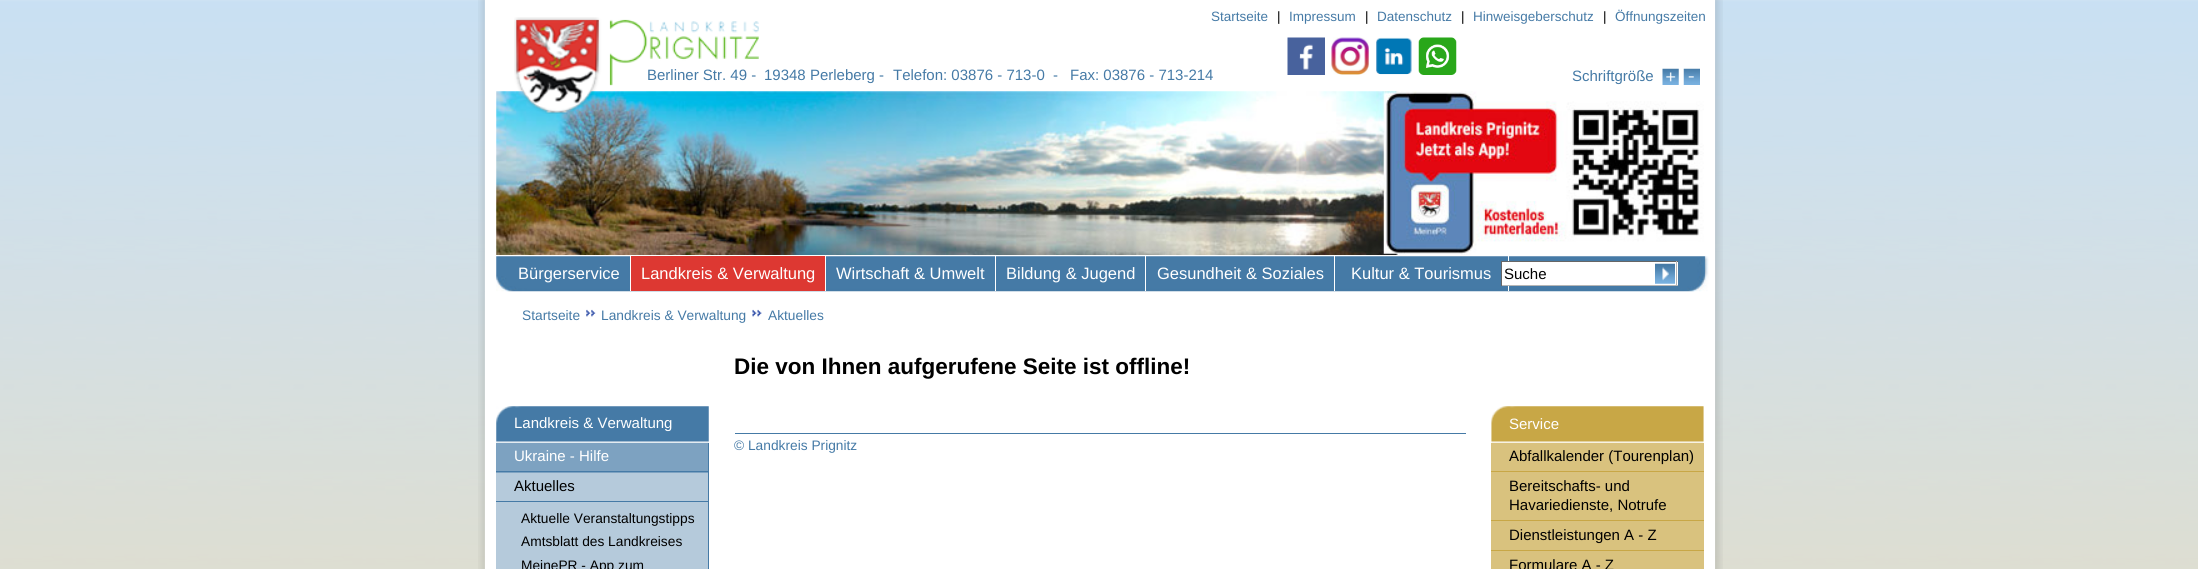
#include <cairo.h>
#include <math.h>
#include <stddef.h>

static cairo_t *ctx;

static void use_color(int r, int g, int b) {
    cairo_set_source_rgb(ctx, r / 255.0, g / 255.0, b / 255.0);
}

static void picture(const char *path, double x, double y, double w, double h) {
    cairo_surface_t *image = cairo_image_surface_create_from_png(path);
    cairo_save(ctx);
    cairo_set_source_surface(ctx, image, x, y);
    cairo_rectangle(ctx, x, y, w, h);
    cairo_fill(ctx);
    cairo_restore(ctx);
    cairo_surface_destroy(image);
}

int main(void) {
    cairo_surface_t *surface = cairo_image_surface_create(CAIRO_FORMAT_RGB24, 2198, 569);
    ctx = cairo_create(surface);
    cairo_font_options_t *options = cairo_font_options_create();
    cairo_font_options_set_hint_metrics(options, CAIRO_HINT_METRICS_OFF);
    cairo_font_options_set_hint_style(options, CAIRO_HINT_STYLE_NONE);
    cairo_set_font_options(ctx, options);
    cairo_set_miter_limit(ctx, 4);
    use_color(255, 255, 255);
    cairo_paint(ctx);
    picture("img1.png", 0, 0, 2198, 569);
    picture("img2.png", 478, 291, 1245, 278);
    use_color(255, 255, 255);
    cairo_rectangle(ctx, 485, 291, 1230, 278);
    cairo_fill(ctx);
    picture("img3.png", 478, 0, 1245, 292);
    cairo_rectangle(ctx, 485, 0, 1230, 291);
    cairo_fill(ctx);
    cairo_select_font_face(ctx, "Liberation Sans", CAIRO_FONT_SLANT_NORMAL, CAIRO_FONT_WEIGHT_NORMAL);
    cairo_set_font_size(ctx, 15);
    use_color(69, 122, 166);
    cairo_move_to(ctx, 647, 80);
    cairo_show_text(ctx, "Berliner Str. 49 -");
    picture("img11.png", 496, 91, 1208, 164);
    picture("img4.png", 514, 17, 245, 97);
    cairo_set_font_size(ctx, 13.5);
    cairo_move_to(ctx, 1211, 21);
    cairo_show_text(ctx, "Startseite");
    use_color(0, 0, 0);
    cairo_move_to(ctx, 1277, 21);
    cairo_show_text(ctx, "|");
    use_color(69, 122, 166);
    cairo_move_to(ctx, 1289, 21);
    cairo_show_text(ctx, "Impressum");
    use_color(0, 0, 0);
    cairo_move_to(ctx, 1365, 21);
    cairo_show_text(ctx, "|");
    use_color(69, 122, 166);
    cairo_move_to(ctx, 1377, 21);
    cairo_show_text(ctx, "Datenschutz");
    use_color(0, 0, 0);
    cairo_move_to(ctx, 1461, 21);
    cairo_show_text(ctx, "|");
    use_color(69, 122, 166);
    cairo_move_to(ctx, 1473, 21);
    cairo_show_text(ctx, "Hinweisgeberschutz");
    use_color(0, 0, 0);
    cairo_move_to(ctx, 1603, 21);
    cairo_show_text(ctx, "|");
    use_color(69, 122, 166);
    cairo_move_to(ctx, 1615, 21);
    cairo_show_text(ctx, "Öffnungszeiten");
    picture("img5.png", 1287, 37, 38, 38);
    picture("img6.png", 1331, 37, 38, 38);
    picture("img7.png", 1376, 37, 36, 38);
    picture("img8.png", 1418, 37, 39, 38);
    cairo_set_font_size(ctx, 15);
    cairo_move_to(ctx, 764, 80);
    cairo_show_text(ctx, "19348 Perleberg -");
    cairo_move_to(ctx, 893, 80);
    cairo_show_text(ctx, "Telefon: 03876 - 713-0  -");
    cairo_move_to(ctx, 1070, 80);
    cairo_show_text(ctx, "Fax: 03876 - 713-214");
    cairo_move_to(ctx, 1572, 81);
    cairo_show_text(ctx, "Schriftgröße");
    picture("img9.png", 1662, 68, 17, 17);
    picture("img10.png", 1683, 68, 17, 17);
    picture("img12.png", 496, 256, 1213, 36);
    use_color(255, 255, 255);
    cairo_rectangle(ctx, 630, 256, 1, 35);
    cairo_fill(ctx);
    cairo_set_font_size(ctx, 16.5);
    cairo_move_to(ctx, 518, 279);
    cairo_show_text(ctx, "Bürgerservice");
    cairo_rectangle(ctx, 825, 256, 1, 35);
    cairo_fill(ctx);
    use_color(221, 56, 50);
    cairo_rectangle(ctx, 631, 256, 194, 35);
    cairo_fill(ctx);
    use_color(255, 255, 255);
    cairo_move_to(ctx, 641, 279);
    cairo_show_text(ctx, "Landkreis & Verwaltung");
    cairo_rectangle(ctx, 995, 256, 1, 35);
    cairo_fill(ctx);
    cairo_move_to(ctx, 836, 279);
    cairo_show_text(ctx, "Wirtschaft & Umwelt");
    cairo_rectangle(ctx, 1145, 256, 1, 35);
    cairo_fill(ctx);
    cairo_move_to(ctx, 1006, 279);
    cairo_show_text(ctx, "Bildung & Jugend");
    cairo_rectangle(ctx, 1334, 256, 1, 35);
    cairo_fill(ctx);
    cairo_move_to(ctx, 1157, 279);
    cairo_show_text(ctx, "Gesundheit & Soziales");
    cairo_rectangle(ctx, 1508, 256, 1, 35);
    cairo_fill(ctx);
    cairo_move_to(ctx, 1351, 279);
    cairo_show_text(ctx, "Kultur & Tourismus");
    cairo_rectangle(ctx, 1502, 262, 176, 23);
    cairo_fill(ctx);
    use_color(102, 102, 102);
    cairo_rectangle(ctx, 1501, 261, 177, 1);
    cairo_fill(ctx);
    use_color(182, 182, 182);
    cairo_rectangle(ctx, 1676, 261, 1, 25);
    cairo_fill(ctx);
    cairo_rectangle(ctx, 1501, 285, 177, 1);
    cairo_fill(ctx);
    use_color(102, 102, 102);
    cairo_rectangle(ctx, 1501, 261, 1, 25);
    cairo_fill(ctx);
    cairo_set_font_size(ctx, 15);
    use_color(0, 0, 0);
    cairo_move_to(ctx, 1504, 279);
    cairo_show_text(ctx, "Suche");
    picture("img13.png", 1655, 263, 20, 21);
    cairo_set_font_size(ctx, 13.75);
    use_color(69, 122, 166);
    cairo_move_to(ctx, 522, 320);
    cairo_show_text(ctx, "Startseite");
    picture("img14.png", 586, 309, 10, 8);
    cairo_move_to(ctx, 601, 320);
    cairo_show_text(ctx, "Landkreis & Verwaltung");
    picture("img15.png", 752, 309, 10, 8);
    cairo_move_to(ctx, 768, 320);
    cairo_show_text(ctx, "Aktuelles");
    cairo_select_font_face(ctx, "Liberation Sans", CAIRO_FONT_SLANT_NORMAL, CAIRO_FONT_WEIGHT_BOLD);
    cairo_set_font_size(ctx, 22.5);
    use_color(0, 0, 0);
    cairo_move_to(ctx, 734, 374);
    cairo_show_text(ctx, "Die von Ihnen aufgerufene Seite ist offline!");
    use_color(69, 122, 166);
    cairo_rectangle(ctx, 735, 433, 731, 1);
    cairo_fill(ctx);
    cairo_select_font_face(ctx, "Liberation Sans", CAIRO_FONT_SLANT_NORMAL, CAIRO_FONT_WEIGHT_NORMAL);
    cairo_set_font_size(ctx, 13.75);
    cairo_move_to(ctx, 734, 450);
    cairo_show_text(ctx, "© Landkreis Prignitz");
    picture("img16.png", 496, 406, 213, 37);
    cairo_set_font_size(ctx, 15);
    use_color(255, 255, 255);
    cairo_move_to(ctx, 514, 428);
    cairo_show_text(ctx, "Landkreis & Verwaltung");
    use_color(69, 122, 166);
    cairo_rectangle(ctx, 708, 443, 1, 126);
    cairo_fill(ctx);
    use_color(125, 162, 193);
    cairo_rectangle(ctx, 496, 443, 212, 30);
    cairo_fill(ctx);
    use_color(69, 122, 166);
    cairo_rectangle(ctx, 496, 471, 212, 1);
    cairo_fill(ctx);
    use_color(255, 255, 255);
    cairo_move_to(ctx, 514, 461);
    cairo_show_text(ctx, "Ukraine - Hilfe");
    use_color(181, 202, 219);
    cairo_rectangle(ctx, 496, 473, 212, 96);
    cairo_fill(ctx);
    use_color(69, 122, 166);
    cairo_rectangle(ctx, 496, 501, 212, 1);
    cairo_fill(ctx);
    use_color(0, 0, 0);
    cairo_move_to(ctx, 514, 491);
    cairo_show_text(ctx, "Aktuelles");
    cairo_set_font_size(ctx, 13.75);
    cairo_move_to(ctx, 521, 523);
    cairo_show_text(ctx, "Aktuelle Veranstaltungstipps");
    cairo_move_to(ctx, 521, 546);
    cairo_show_text(ctx, "Amtsblatt des Landkreises");
    cairo_move_to(ctx, 521, 570);
    cairo_show_text(ctx, "MeinePR - App zum");
    picture("img17.png", 1491, 406, 213, 37);
    cairo_set_font_size(ctx, 15);
    use_color(255, 255, 255);
    cairo_move_to(ctx, 1509, 429);
    cairo_show_text(ctx, "Service");
    use_color(217, 194, 126);
    cairo_rectangle(ctx, 1491, 443, 213, 77);
    cairo_fill(ctx);
    use_color(200, 167, 70);
    cairo_rectangle(ctx, 1491, 471, 213, 1);
    cairo_fill(ctx);
    use_color(0, 0, 0);
    cairo_move_to(ctx, 1509, 461);
    cairo_show_text(ctx, "Abfallkalender (Tourenplan)");
    use_color(200, 167, 70);
    cairo_rectangle(ctx, 1491, 520, 213, 1);
    cairo_fill(ctx);
    use_color(0, 0, 0);
    cairo_move_to(ctx, 1509, 491);
    cairo_show_text(ctx, "Bereitschafts- und");
    cairo_move_to(ctx, 1509, 510);
    cairo_show_text(ctx, "Havariedienste, Notrufe");
    use_color(217, 194, 126);
    cairo_rectangle(ctx, 1491, 521, 213, 29);
    cairo_fill(ctx);
    use_color(200, 167, 70);
    cairo_rectangle(ctx, 1491, 550, 213, 1);
    cairo_fill(ctx);
    use_color(0, 0, 0);
    cairo_move_to(ctx, 1509, 540);
    cairo_show_text(ctx, "Dienstleistungen A - Z");
    use_color(217, 194, 126);
    cairo_rectangle(ctx, 1491, 551, 213, 18);
    cairo_fill(ctx);
    use_color(0, 0, 0);
    cairo_move_to(ctx, 1509, 570);
    cairo_show_text(ctx, "Formulare A - Z");
    cairo_surface_write_to_png(surface, "result.png");
    cairo_font_options_destroy(options);
    cairo_destroy(ctx);
    cairo_surface_destroy(surface);
    return 0;
}
